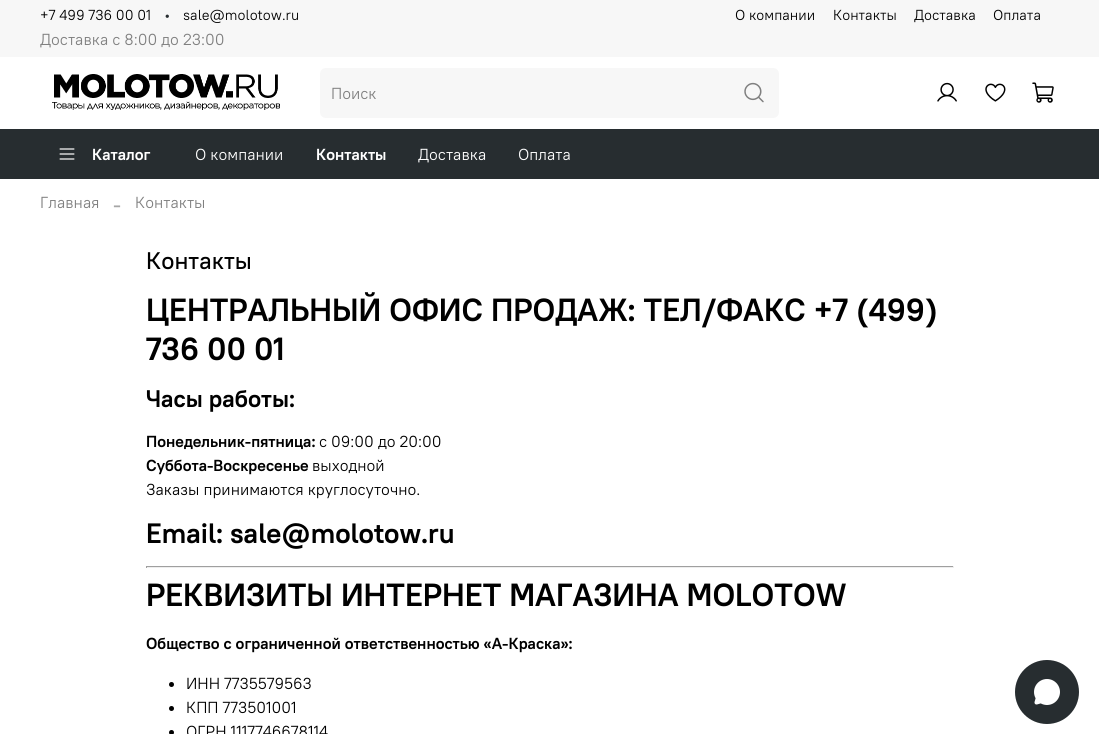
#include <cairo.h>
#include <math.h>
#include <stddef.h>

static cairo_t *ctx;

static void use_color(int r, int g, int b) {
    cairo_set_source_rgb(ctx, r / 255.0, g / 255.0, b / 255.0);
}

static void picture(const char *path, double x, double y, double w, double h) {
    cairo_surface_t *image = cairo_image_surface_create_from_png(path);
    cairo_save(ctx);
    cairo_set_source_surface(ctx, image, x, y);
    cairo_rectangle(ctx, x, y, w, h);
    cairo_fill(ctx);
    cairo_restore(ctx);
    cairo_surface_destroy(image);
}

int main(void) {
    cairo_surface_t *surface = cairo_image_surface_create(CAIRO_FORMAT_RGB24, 1099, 734);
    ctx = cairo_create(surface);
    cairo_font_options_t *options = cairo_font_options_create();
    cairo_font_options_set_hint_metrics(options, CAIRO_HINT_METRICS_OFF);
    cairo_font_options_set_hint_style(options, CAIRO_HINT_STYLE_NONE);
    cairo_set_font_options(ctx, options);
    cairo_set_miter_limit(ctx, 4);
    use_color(255, 255, 255);
    cairo_paint(ctx);
    use_color(247, 247, 247);
    cairo_rectangle(ctx, 0, 0, 1099, 57);
    cairo_fill(ctx);
    cairo_select_font_face(ctx, "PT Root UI", CAIRO_FONT_SLANT_NORMAL, CAIRO_FONT_WEIGHT_NORMAL);
    cairo_set_font_size(ctx, 14.5);
    use_color(0, 0, 0);
    cairo_move_to(ctx, 40, 20);
    cairo_show_text(ctx, "+7 499 736 00 01");
    use_color(39, 45, 48);
    cairo_move_to(ctx, 164, 20);
    cairo_show_text(ctx, "•");
    use_color(0, 0, 0);
    cairo_move_to(ctx, 183, 20);
    cairo_show_text(ctx, "sale@molotow.ru");
    cairo_move_to(ctx, 735, 20);
    cairo_show_text(ctx, "О компании");
    cairo_move_to(ctx, 833, 20);
    cairo_show_text(ctx, "Контакты");
    cairo_move_to(ctx, 914, 20);
    cairo_show_text(ctx, "Доставка");
    cairo_move_to(ctx, 993, 20);
    cairo_show_text(ctx, "Оплата");
    cairo_set_font_size(ctx, 16);
    use_color(128, 128, 128);
    cairo_move_to(ctx, 40, 45);
    cairo_show_text(ctx, "Доставка с 8:00 до 23:00");
    picture("img1.png", 52, 74, 228, 36);
    use_color(247, 247, 247);
    cairo_new_path(ctx);
    cairo_move_to(ctx, 326, 68);
    cairo_line_to(ctx, 729, 68);
    cairo_line_to(ctx, 729, 118);
    cairo_line_to(ctx, 326, 118);
    cairo_curve_to(ctx, 322.5, 118, 320, 115.5, 320, 112);
    cairo_line_to(ctx, 320, 74);
    cairo_curve_to(ctx, 320, 70.5, 322.5, 68, 326, 68);
    cairo_close_path(ctx);
    cairo_fill(ctx);
    use_color(128, 128, 128);
    cairo_move_to(ctx, 331, 99);
    cairo_show_text(ctx, "Поиск");
    use_color(247, 247, 247);
    cairo_new_path(ctx);
    cairo_move_to(ctx, 729, 68);
    cairo_line_to(ctx, 773, 68);
    cairo_curve_to(ctx, 776.5, 68, 779, 70.5, 779, 74);
    cairo_line_to(ctx, 779, 112);
    cairo_curve_to(ctx, 779, 115.5, 776.5, 118, 773, 118);
    cairo_line_to(ctx, 729, 118);
    cairo_close_path(ctx);
    cairo_fill(ctx);
    picture("img2.png", 744, 82, 20, 21);
    picture("img3.png", 937, 82, 20, 20);
    picture("img4.png", 985, 83, 21, 19);
    picture("img5.png", 1032, 82, 22, 21);
    use_color(39, 45, 48);
    cairo_rectangle(ctx, 0, 129, 1099, 50);
    cairo_fill(ctx);
    picture("img6.png", 59, 148, 16, 12);
    cairo_select_font_face(ctx, "PT Root UI", CAIRO_FONT_SLANT_NORMAL, CAIRO_FONT_WEIGHT_BOLD);
    use_color(255, 255, 255);
    cairo_move_to(ctx, 92, 160);
    cairo_show_text(ctx, "Каталог");
    cairo_select_font_face(ctx, "PT Root UI", CAIRO_FONT_SLANT_NORMAL, CAIRO_FONT_WEIGHT_NORMAL);
    cairo_move_to(ctx, 195, 160);
    cairo_show_text(ctx, "О компании");
    cairo_select_font_face(ctx, "PT Root UI", CAIRO_FONT_SLANT_NORMAL, CAIRO_FONT_WEIGHT_BOLD);
    cairo_move_to(ctx, 316, 160);
    cairo_show_text(ctx, "Контакты");
    cairo_select_font_face(ctx, "PT Root UI", CAIRO_FONT_SLANT_NORMAL, CAIRO_FONT_WEIGHT_NORMAL);
    cairo_move_to(ctx, 418, 160);
    cairo_show_text(ctx, "Доставка");
    cairo_move_to(ctx, 518, 160);
    cairo_show_text(ctx, "Оплата");
    use_color(128, 128, 128);
    cairo_move_to(ctx, 40, 208);
    cairo_show_text(ctx, "Главная");
    cairo_select_font_face(ctx, "Liberation Serif", CAIRO_FONT_SLANT_NORMAL, CAIRO_FONT_WEIGHT_NORMAL);
    cairo_set_font_size(ctx, 24);
    use_color(166, 166, 166);
    cairo_move_to(ctx, 113, 212);
    cairo_show_text(ctx, "-");
    cairo_select_font_face(ctx, "PT Root UI", CAIRO_FONT_SLANT_NORMAL, CAIRO_FONT_WEIGHT_NORMAL);
    cairo_set_font_size(ctx, 16);
    use_color(128, 128, 128);
    cairo_move_to(ctx, 135, 208);
    cairo_show_text(ctx, "Контакты");
    cairo_select_font_face(ctx, "PT Root UI Medium", CAIRO_FONT_SLANT_NORMAL, CAIRO_FONT_WEIGHT_NORMAL);
    cairo_set_font_size(ctx, 24);
    use_color(0, 0, 0);
    cairo_move_to(ctx, 146, 269);
    cairo_show_text(ctx, "Контакты");
    cairo_select_font_face(ctx, "PT Root UI", CAIRO_FONT_SLANT_NORMAL, CAIRO_FONT_WEIGHT_BOLD);
    cairo_set_font_size(ctx, 32);
    cairo_move_to(ctx, 146, 321);
    cairo_show_text(ctx, "ЦЕНТРАЛЬНЫЙ ОФИС ПРОДАЖ: ТЕЛ/ФАКС +7 (499)");
    cairo_save(ctx);
    cairo_rectangle(ctx, 146, 291, 808, 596);
    cairo_clip(ctx);
    cairo_move_to(ctx, 146, 360);
    cairo_show_text(ctx, "736 00 01");
    cairo_restore(ctx);
    cairo_set_font_size(ctx, 24);
    cairo_move_to(ctx, 146, 407);
    cairo_show_text(ctx, "Часы работы:");
    cairo_set_font_size(ctx, 16);
    cairo_move_to(ctx, 146, 447);
    cairo_show_text(ctx, "Понедельник-пятница:");
    cairo_select_font_face(ctx, "PT Root UI", CAIRO_FONT_SLANT_NORMAL, CAIRO_FONT_WEIGHT_NORMAL);
    cairo_move_to(ctx, 319, 447);
    cairo_show_text(ctx, "с 09:00 до 20:00");
    cairo_select_font_face(ctx, "PT Root UI", CAIRO_FONT_SLANT_NORMAL, CAIRO_FONT_WEIGHT_BOLD);
    cairo_move_to(ctx, 146, 471);
    cairo_show_text(ctx, "Суббота-Воскресенье");
    cairo_select_font_face(ctx, "PT Root UI", CAIRO_FONT_SLANT_NORMAL, CAIRO_FONT_WEIGHT_NORMAL);
    cairo_move_to(ctx, 312, 471);
    cairo_show_text(ctx, "выходной");
    cairo_move_to(ctx, 146, 495);
    cairo_show_text(ctx, "Заказы принимаются круглосуточно.");
    cairo_select_font_face(ctx, "PT Root UI", CAIRO_FONT_SLANT_NORMAL, CAIRO_FONT_WEIGHT_BOLD);
    cairo_set_font_size(ctx, 28);
    cairo_move_to(ctx, 146, 543);
    cairo_show_text(ctx, "Email: sale@molotow.ru");
    use_color(159, 159, 159);
    cairo_rectangle(ctx, 146, 566, 808, 1);
    cairo_fill(ctx);
    use_color(238, 238, 238);
    cairo_rectangle(ctx, 953, 566, 1, 2);
    cairo_fill(ctx);
    cairo_rectangle(ctx, 146, 567, 808, 1);
    cairo_fill(ctx);
    use_color(159, 159, 159);
    cairo_rectangle(ctx, 146, 566, 1, 2);
    cairo_fill(ctx);
    cairo_set_font_size(ctx, 32);
    use_color(0, 0, 0);
    cairo_move_to(ctx, 146, 606);
    cairo_show_text(ctx, "РЕКВИЗИТЫ ИНТЕРНЕТ МАГАЗИНА MOLOTOW");
    cairo_set_font_size(ctx, 16);
    cairo_move_to(ctx, 146, 649);
    cairo_show_text(ctx, "Общество с ограниченной ответственностью «А-Краска»:");
    cairo_new_path(ctx);
    cairo_arc(ctx, 171.5, 684.5, 2.5, 0, 2 * M_PI);
    cairo_fill(ctx);
    cairo_select_font_face(ctx, "PT Root UI", CAIRO_FONT_SLANT_NORMAL, CAIRO_FONT_WEIGHT_NORMAL);
    cairo_move_to(ctx, 186, 689);
    cairo_show_text(ctx, "ИНН 7735579563");
    cairo_new_path(ctx);
    cairo_arc(ctx, 171.5, 708.5, 2.5, 0, 2 * M_PI);
    cairo_fill(ctx);
    cairo_move_to(ctx, 186, 713);
    cairo_show_text(ctx, "КПП 773501001");
    cairo_new_path(ctx);
    cairo_arc(ctx, 171.5, 732.5, 2.5, 0, 2 * M_PI);
    cairo_fill(ctx);
    cairo_move_to(ctx, 186, 737);
    cairo_show_text(ctx, "ОГРН 1117746678114");
    use_color(39, 45, 48);
    cairo_new_path(ctx);
    cairo_arc(ctx, 1047, 692, 32, 0, 2 * M_PI);
    cairo_fill(ctx);
    picture("img7.png", 1034, 679, 26, 26);
    cairo_surface_write_to_png(surface, "result.png");
    cairo_font_options_destroy(options);
    cairo_destroy(ctx);
    cairo_surface_destroy(surface);
    return 0;
}
